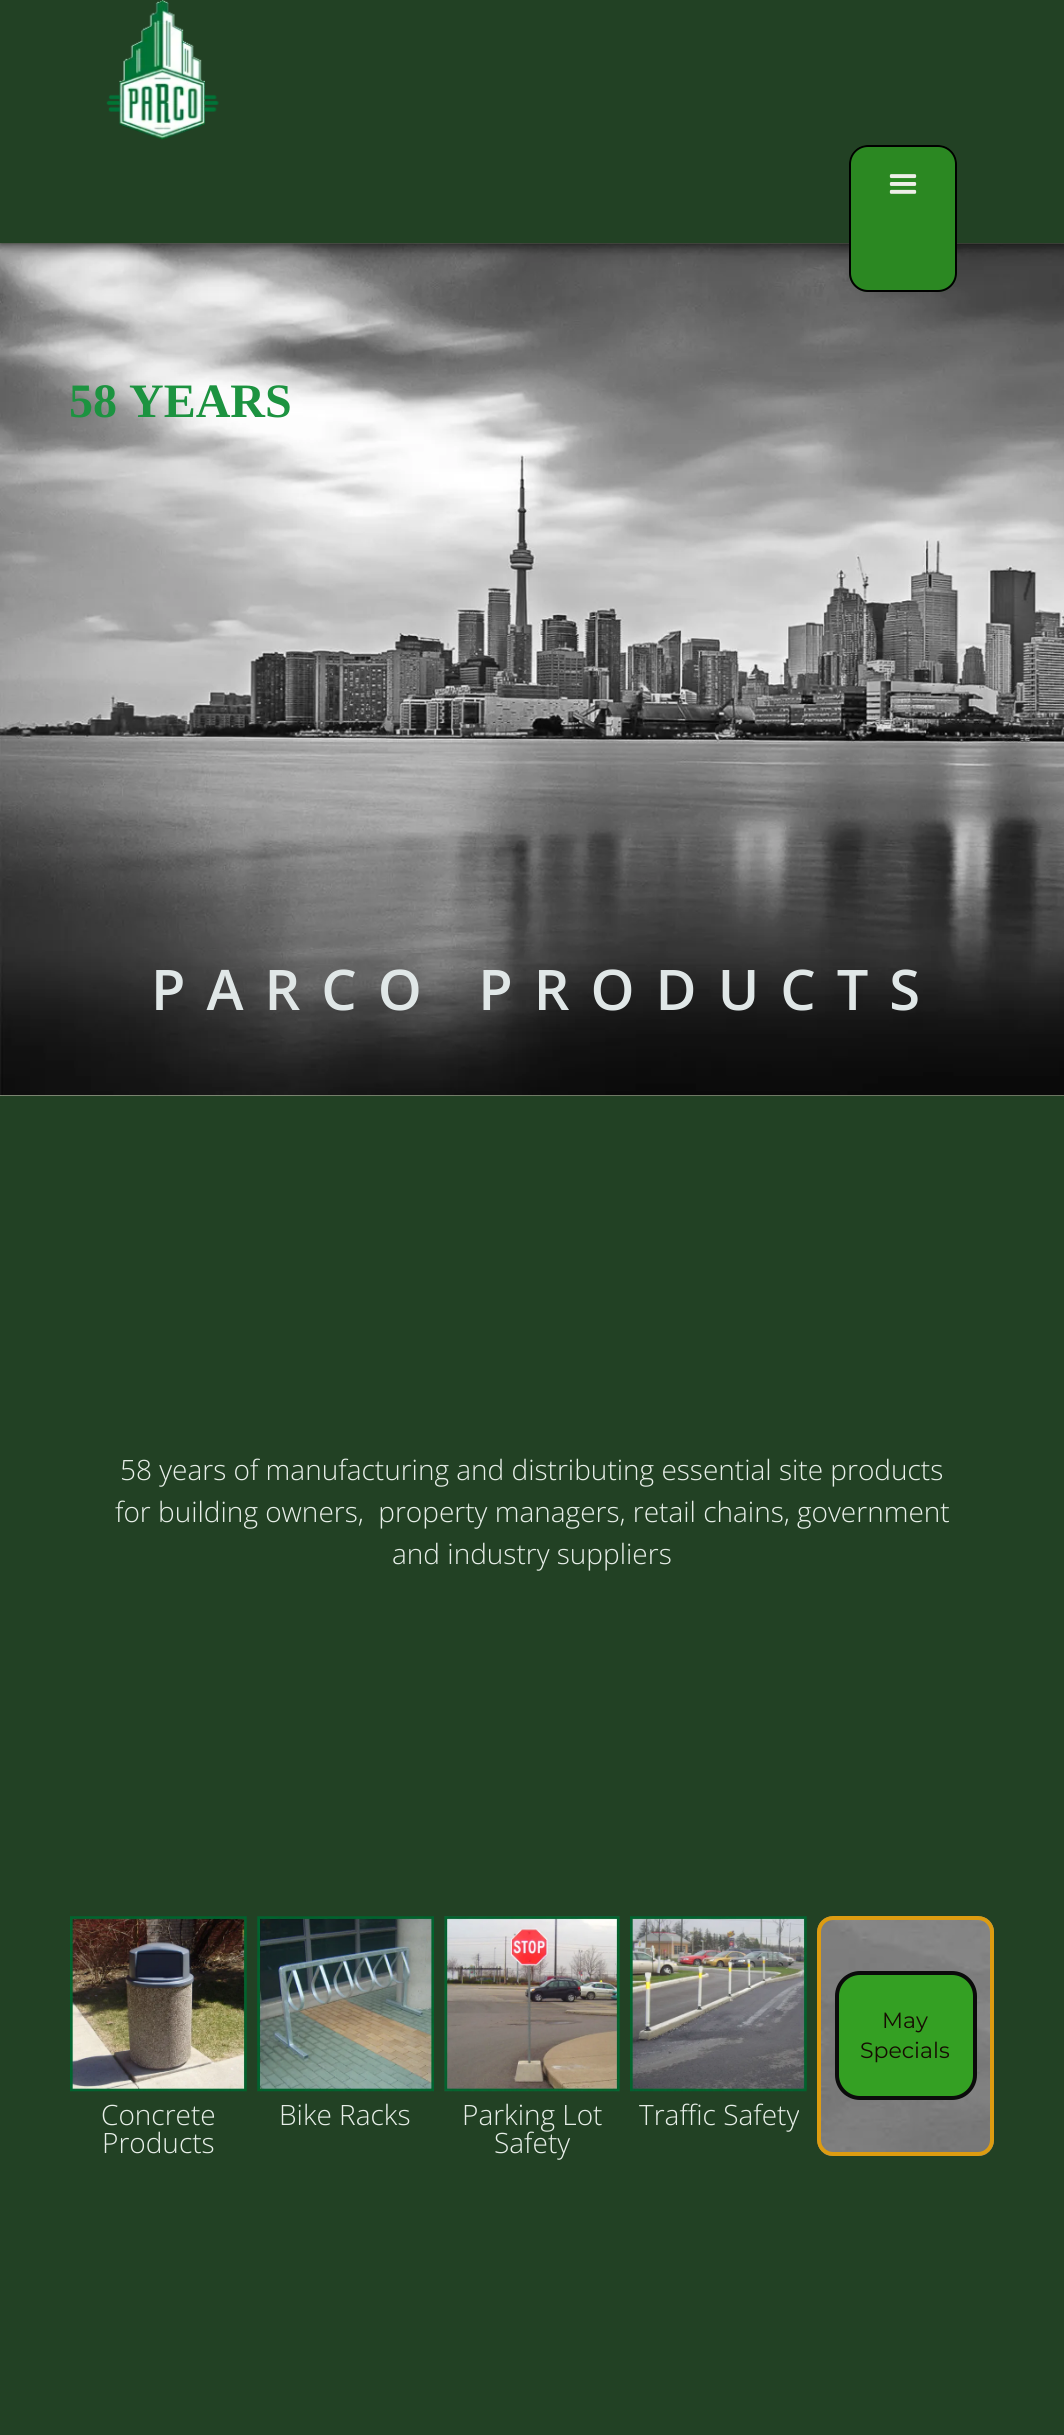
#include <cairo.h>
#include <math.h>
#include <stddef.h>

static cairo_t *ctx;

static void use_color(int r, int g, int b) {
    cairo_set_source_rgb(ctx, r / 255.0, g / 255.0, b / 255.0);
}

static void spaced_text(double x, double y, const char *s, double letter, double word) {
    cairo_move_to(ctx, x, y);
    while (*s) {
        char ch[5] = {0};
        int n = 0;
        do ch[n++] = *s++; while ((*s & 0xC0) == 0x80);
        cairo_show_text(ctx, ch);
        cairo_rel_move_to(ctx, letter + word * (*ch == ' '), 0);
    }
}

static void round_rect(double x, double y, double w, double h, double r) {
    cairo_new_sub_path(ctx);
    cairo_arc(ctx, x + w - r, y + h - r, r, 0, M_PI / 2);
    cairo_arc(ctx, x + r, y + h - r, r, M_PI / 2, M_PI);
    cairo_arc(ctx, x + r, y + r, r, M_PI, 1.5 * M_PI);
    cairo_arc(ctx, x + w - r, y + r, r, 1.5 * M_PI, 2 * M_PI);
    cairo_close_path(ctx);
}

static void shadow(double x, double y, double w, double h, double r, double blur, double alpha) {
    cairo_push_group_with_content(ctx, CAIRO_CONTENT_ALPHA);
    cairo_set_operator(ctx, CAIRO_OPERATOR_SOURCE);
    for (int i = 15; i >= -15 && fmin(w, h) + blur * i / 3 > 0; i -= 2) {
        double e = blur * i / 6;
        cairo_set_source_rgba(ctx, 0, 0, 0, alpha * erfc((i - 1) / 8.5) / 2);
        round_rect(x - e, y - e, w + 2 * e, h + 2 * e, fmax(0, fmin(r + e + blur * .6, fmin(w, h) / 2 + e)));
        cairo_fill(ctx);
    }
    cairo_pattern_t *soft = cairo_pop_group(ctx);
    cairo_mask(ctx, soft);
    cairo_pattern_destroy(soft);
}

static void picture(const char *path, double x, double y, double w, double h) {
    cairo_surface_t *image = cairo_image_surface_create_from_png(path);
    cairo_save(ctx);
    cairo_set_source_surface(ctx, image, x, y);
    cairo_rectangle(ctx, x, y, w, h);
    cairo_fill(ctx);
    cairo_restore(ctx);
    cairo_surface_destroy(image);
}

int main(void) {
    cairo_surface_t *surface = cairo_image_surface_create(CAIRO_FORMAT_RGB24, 1064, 2435);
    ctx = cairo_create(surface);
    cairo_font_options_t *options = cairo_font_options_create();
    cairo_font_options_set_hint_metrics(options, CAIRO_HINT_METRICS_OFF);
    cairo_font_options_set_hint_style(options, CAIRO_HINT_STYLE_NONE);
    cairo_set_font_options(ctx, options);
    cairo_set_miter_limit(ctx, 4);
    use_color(34, 65, 36);
    cairo_paint(ctx);
    use_color(199, 216, 178);
    cairo_rectangle(ctx, 0, 243, 1064, 853);
    cairo_fill(ctx);
    picture("img3.png", 0, 243, 1064, 853);
    cairo_save(ctx);
    cairo_rectangle(ctx, 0, 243, 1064, 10);
    cairo_clip(ctx);
    use_color(0, 0, 0);
    shadow(0, 4, 1064, 243, 0, 4.5, 0.2);
    cairo_restore(ctx);
    picture("img1.png", 106, 0, 113, 140);
    use_color(52, 109, 50);
    round_rect(849, 145, 108, 147, 19);
    cairo_fill(ctx);
    cairo_set_source_rgba(ctx, 0.137, 0.643, 0.078, 0.5);
    round_rect(850, 146, 106, 145, 18);
    cairo_fill_preserve(ctx);
    use_color(0, 0, 0);
    cairo_stroke(ctx);
    picture("img2.png", 889, 174, 28, 20);
    cairo_select_font_face(ctx, "Liberation Serif", CAIRO_FONT_SLANT_NORMAL, CAIRO_FONT_WEIGHT_BOLD);
    cairo_set_font_size(ctx, 48);
    use_color(28, 147, 64);
    cairo_move_to(ctx, 69, 417);
    cairo_show_text(ctx, "58 YEARS");
    cairo_select_font_face(ctx, "Open Sans SemiBold", CAIRO_FONT_SLANT_NORMAL, CAIRO_FONT_WEIGHT_NORMAL);
    cairo_set_font_size(ctx, 56);
    use_color(224, 231, 231);
    spaced_text(151, 1010, "PARCO PRODUCTS", 21, 0);
    cairo_select_font_face(ctx, "Open Sans Light", CAIRO_FONT_SLANT_NORMAL, CAIRO_FONT_WEIGHT_NORMAL);
    cairo_set_font_size(ctx, 28);
    use_color(231, 238, 232);
    cairo_move_to(ctx, 120, 1480);
    cairo_show_text(ctx, "58 years of manufacturing and distributing essential site products");
    cairo_move_to(ctx, 115, 1522);
    cairo_show_text(ctx, "for building owners,  property managers, retail chains, government");
    cairo_move_to(ctx, 392, 1564);
    cairo_show_text(ctx, "and industry suppliers");
    picture("img4.png", 817, 1916, 177, 240);
    round_rect(819, 1918, 173, 236, 14);
    use_color(221, 156, 17);
    cairo_set_line_width(ctx, 4);
    cairo_stroke(ctx);
    use_color(52, 160, 35);
    round_rect(837, 1973, 138, 125, 23);
    cairo_fill_preserve(ctx);
    use_color(11, 11, 11);
    cairo_stroke(ctx);
    cairo_select_font_face(ctx, "Montserrat", CAIRO_FONT_SLANT_NORMAL, CAIRO_FONT_WEIGHT_NORMAL);
    cairo_set_font_size(ctx, 22);
    use_color(22, 13, 2);
    cairo_move_to(ctx, 882, 2028);
    cairo_show_text(ctx, "May");
    cairo_move_to(ctx, 860, 2058);
    cairo_show_text(ctx, "Specials");
    picture("img5.png", 70, 1916, 177, 176);
    cairo_select_font_face(ctx, "Open Sans Light", CAIRO_FONT_SLANT_NORMAL, CAIRO_FONT_WEIGHT_NORMAL);
    cairo_set_font_size(ctx, 28);
    use_color(231, 238, 232);
    cairo_move_to(ctx, 101, 2125);
    cairo_show_text(ctx, "Concrete");
    cairo_move_to(ctx, 102, 2153);
    cairo_show_text(ctx, "Products");
    picture("img6.png", 257, 1916, 177, 176);
    cairo_move_to(ctx, 279, 2125);
    cairo_show_text(ctx, "Bike Racks");
    picture("img7.png", 444, 1916, 176, 176);
    cairo_move_to(ctx, 462, 2125);
    cairo_show_text(ctx, "Parking Lot");
    cairo_move_to(ctx, 494, 2153);
    cairo_show_text(ctx, "Safety");
    picture("img8.png", 630, 1916, 177, 176);
    cairo_move_to(ctx, 639, 2125);
    cairo_show_text(ctx, "Traffic Safety");
    cairo_surface_write_to_png(surface, "result.png");
    cairo_font_options_destroy(options);
    cairo_destroy(ctx);
    cairo_surface_destroy(surface);
    return 0;
}
